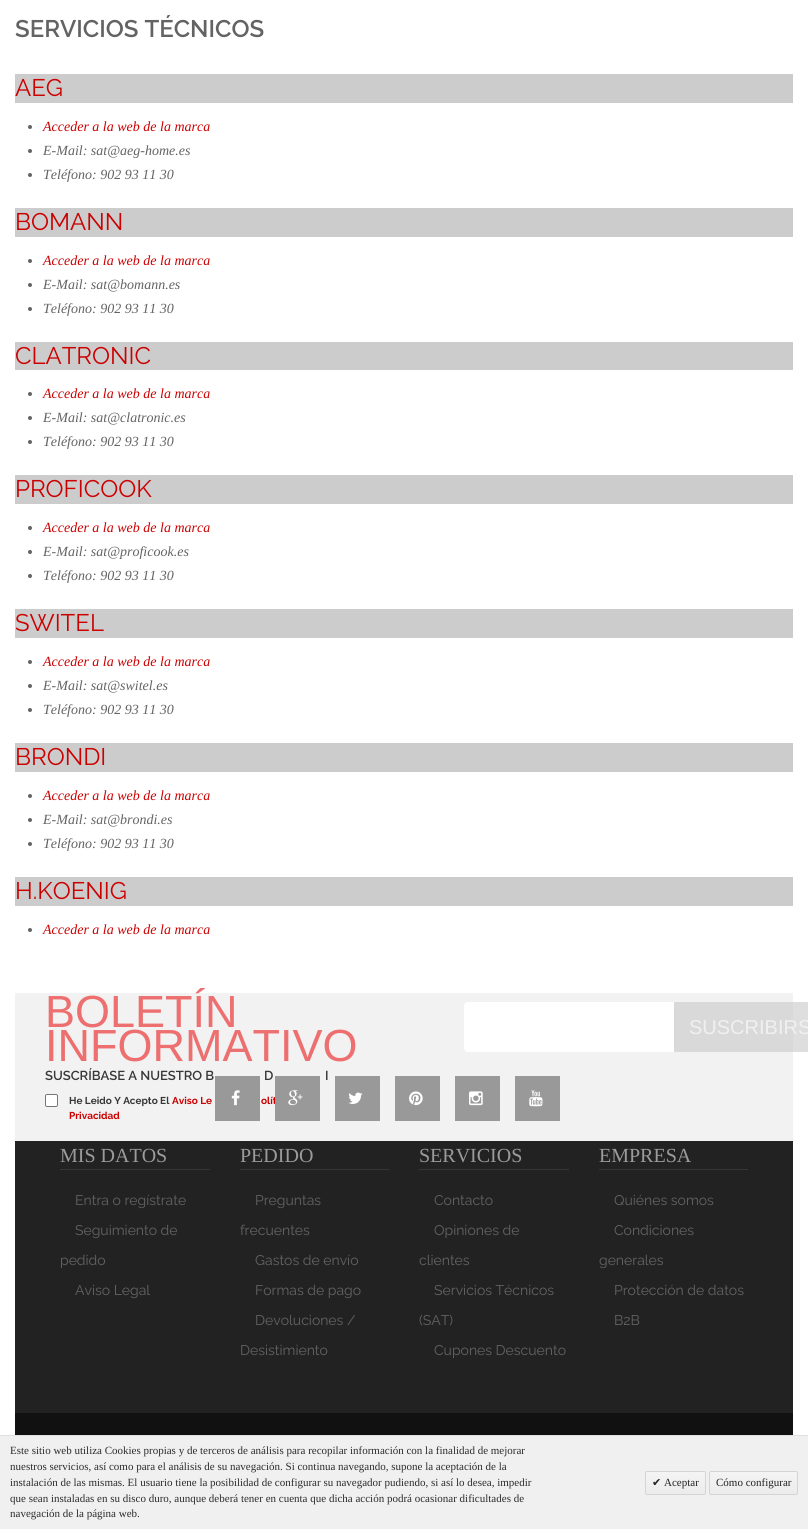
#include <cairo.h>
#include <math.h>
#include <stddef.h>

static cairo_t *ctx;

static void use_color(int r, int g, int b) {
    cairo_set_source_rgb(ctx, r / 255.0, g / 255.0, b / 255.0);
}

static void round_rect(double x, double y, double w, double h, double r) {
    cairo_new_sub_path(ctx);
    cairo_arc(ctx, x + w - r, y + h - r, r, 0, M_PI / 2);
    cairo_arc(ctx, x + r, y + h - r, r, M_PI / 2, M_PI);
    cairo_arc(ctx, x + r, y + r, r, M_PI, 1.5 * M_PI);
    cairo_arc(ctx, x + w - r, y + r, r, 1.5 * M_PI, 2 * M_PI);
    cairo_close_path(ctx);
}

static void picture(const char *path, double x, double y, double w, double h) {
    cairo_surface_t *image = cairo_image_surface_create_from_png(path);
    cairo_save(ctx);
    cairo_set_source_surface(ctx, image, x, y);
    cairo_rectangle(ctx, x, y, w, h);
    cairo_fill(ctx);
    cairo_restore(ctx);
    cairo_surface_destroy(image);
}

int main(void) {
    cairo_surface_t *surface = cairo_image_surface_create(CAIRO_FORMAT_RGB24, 808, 1529);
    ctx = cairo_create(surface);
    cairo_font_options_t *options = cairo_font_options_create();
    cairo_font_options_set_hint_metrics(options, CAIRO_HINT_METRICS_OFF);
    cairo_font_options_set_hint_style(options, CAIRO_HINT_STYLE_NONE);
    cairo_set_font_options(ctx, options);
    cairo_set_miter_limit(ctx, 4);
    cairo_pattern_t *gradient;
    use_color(255, 255, 255);
    cairo_paint(ctx);
    use_color(222, 222, 222);
    cairo_rectangle(ctx, 793, 1002, 15, 50);
    cairo_fill(ctx);
    cairo_select_font_face(ctx, "Raleway SemiBold", CAIRO_FONT_SLANT_NORMAL, CAIRO_FONT_WEIGHT_NORMAL);
    cairo_set_font_size(ctx, 24);
    use_color(99, 99, 99);
    cairo_move_to(ctx, 15, 37);
    cairo_show_text(ctx, "SERVICIOS TÉCNICOS");
    use_color(204, 204, 204);
    cairo_rectangle(ctx, 15, 74, 778, 29);
    cairo_fill(ctx);
    cairo_select_font_face(ctx, "Raleway Thin", CAIRO_FONT_SLANT_NORMAL, CAIRO_FONT_WEIGHT_NORMAL);
    use_color(204, 0, 0);
    cairo_move_to(ctx, 15, 96);
    cairo_show_text(ctx, "AEG");
    use_color(99, 99, 99);
    cairo_new_path(ctx);
    cairo_arc(ctx, 30, 127, 2, 0, 2 * M_PI);
    cairo_fill(ctx);
    cairo_select_font_face(ctx, "Liberation Serif", CAIRO_FONT_SLANT_ITALIC, CAIRO_FONT_WEIGHT_NORMAL);
    cairo_set_font_size(ctx, 14);
    use_color(204, 0, 0);
    cairo_move_to(ctx, 43, 131);
    cairo_show_text(ctx, "Acceder a la web de la marca");
    use_color(99, 99, 99);
    cairo_new_path(ctx);
    cairo_arc(ctx, 30, 151, 2, 0, 2 * M_PI);
    cairo_fill(ctx);
    cairo_move_to(ctx, 43, 155);
    cairo_show_text(ctx, "E-Mail: sat@aeg-home.es");
    cairo_new_path(ctx);
    cairo_arc(ctx, 30, 175, 2, 0, 2 * M_PI);
    cairo_fill(ctx);
    cairo_move_to(ctx, 43, 179);
    cairo_show_text(ctx, "Teléfono: 902 93 11 30");
    use_color(204, 204, 204);
    cairo_rectangle(ctx, 15, 208, 778, 29);
    cairo_fill(ctx);
    cairo_select_font_face(ctx, "Raleway Thin", CAIRO_FONT_SLANT_NORMAL, CAIRO_FONT_WEIGHT_NORMAL);
    cairo_set_font_size(ctx, 24);
    use_color(204, 0, 0);
    cairo_move_to(ctx, 15, 230);
    cairo_show_text(ctx, "BOMANN");
    use_color(99, 99, 99);
    cairo_new_path(ctx);
    cairo_arc(ctx, 30, 261, 2, 0, 2 * M_PI);
    cairo_fill(ctx);
    cairo_select_font_face(ctx, "Liberation Serif", CAIRO_FONT_SLANT_ITALIC, CAIRO_FONT_WEIGHT_NORMAL);
    cairo_set_font_size(ctx, 14);
    use_color(204, 0, 0);
    cairo_move_to(ctx, 43, 265);
    cairo_show_text(ctx, "Acceder a la web de la marca");
    use_color(99, 99, 99);
    cairo_new_path(ctx);
    cairo_arc(ctx, 30, 285, 2, 0, 2 * M_PI);
    cairo_fill(ctx);
    cairo_move_to(ctx, 43, 289);
    cairo_show_text(ctx, "E-Mail: sat@bomann.es");
    cairo_new_path(ctx);
    cairo_arc(ctx, 30, 309, 2, 0, 2 * M_PI);
    cairo_fill(ctx);
    cairo_move_to(ctx, 43, 313);
    cairo_show_text(ctx, "Teléfono: 902 93 11 30");
    use_color(204, 204, 204);
    cairo_rectangle(ctx, 15, 342, 778, 28);
    cairo_fill(ctx);
    cairo_select_font_face(ctx, "Raleway Thin", CAIRO_FONT_SLANT_NORMAL, CAIRO_FONT_WEIGHT_NORMAL);
    cairo_set_font_size(ctx, 24);
    use_color(204, 0, 0);
    cairo_move_to(ctx, 15, 364);
    cairo_show_text(ctx, "CLATRONIC");
    use_color(99, 99, 99);
    cairo_new_path(ctx);
    cairo_arc(ctx, 30, 394, 2, 0, 2 * M_PI);
    cairo_fill(ctx);
    cairo_select_font_face(ctx, "Liberation Serif", CAIRO_FONT_SLANT_ITALIC, CAIRO_FONT_WEIGHT_NORMAL);
    cairo_set_font_size(ctx, 14);
    use_color(204, 0, 0);
    cairo_move_to(ctx, 43, 398);
    cairo_show_text(ctx, "Acceder a la web de la marca");
    use_color(99, 99, 99);
    cairo_new_path(ctx);
    cairo_arc(ctx, 30, 418, 2, 0, 2 * M_PI);
    cairo_fill(ctx);
    cairo_move_to(ctx, 43, 422);
    cairo_show_text(ctx, "E-Mail: sat@clatronic.es");
    cairo_new_path(ctx);
    cairo_arc(ctx, 30, 442, 2, 0, 2 * M_PI);
    cairo_fill(ctx);
    cairo_move_to(ctx, 43, 446);
    cairo_show_text(ctx, "Teléfono: 902 93 11 30");
    use_color(204, 204, 204);
    cairo_rectangle(ctx, 15, 475, 778, 29);
    cairo_fill(ctx);
    cairo_select_font_face(ctx, "Raleway Thin", CAIRO_FONT_SLANT_NORMAL, CAIRO_FONT_WEIGHT_NORMAL);
    cairo_set_font_size(ctx, 24);
    use_color(204, 0, 0);
    cairo_move_to(ctx, 15, 497);
    cairo_show_text(ctx, "PROFICOOK");
    use_color(99, 99, 99);
    cairo_new_path(ctx);
    cairo_arc(ctx, 30, 528, 2, 0, 2 * M_PI);
    cairo_fill(ctx);
    cairo_select_font_face(ctx, "Liberation Serif", CAIRO_FONT_SLANT_ITALIC, CAIRO_FONT_WEIGHT_NORMAL);
    cairo_set_font_size(ctx, 14);
    use_color(204, 0, 0);
    cairo_move_to(ctx, 43, 532);
    cairo_show_text(ctx, "Acceder a la web de la marca");
    use_color(99, 99, 99);
    cairo_new_path(ctx);
    cairo_arc(ctx, 30, 552, 2, 0, 2 * M_PI);
    cairo_fill(ctx);
    cairo_move_to(ctx, 43, 556);
    cairo_show_text(ctx, "E-Mail: sat@proficook.es");
    cairo_new_path(ctx);
    cairo_arc(ctx, 30, 576, 2, 0, 2 * M_PI);
    cairo_fill(ctx);
    cairo_move_to(ctx, 43, 580);
    cairo_show_text(ctx, "Teléfono: 902 93 11 30");
    use_color(204, 204, 204);
    cairo_rectangle(ctx, 15, 609, 778, 29);
    cairo_fill(ctx);
    cairo_select_font_face(ctx, "Raleway Thin", CAIRO_FONT_SLANT_NORMAL, CAIRO_FONT_WEIGHT_NORMAL);
    cairo_set_font_size(ctx, 24);
    use_color(204, 0, 0);
    cairo_move_to(ctx, 15, 631);
    cairo_show_text(ctx, "SWITEL");
    use_color(99, 99, 99);
    cairo_new_path(ctx);
    cairo_arc(ctx, 30, 662, 2, 0, 2 * M_PI);
    cairo_fill(ctx);
    cairo_select_font_face(ctx, "Liberation Serif", CAIRO_FONT_SLANT_ITALIC, CAIRO_FONT_WEIGHT_NORMAL);
    cairo_set_font_size(ctx, 14);
    use_color(204, 0, 0);
    cairo_move_to(ctx, 43, 666);
    cairo_show_text(ctx, "Acceder a la web de la marca");
    use_color(99, 99, 99);
    cairo_new_path(ctx);
    cairo_arc(ctx, 30, 686, 2, 0, 2 * M_PI);
    cairo_fill(ctx);
    cairo_move_to(ctx, 43, 690);
    cairo_show_text(ctx, "E-Mail: sat@switel.es");
    cairo_new_path(ctx);
    cairo_arc(ctx, 30, 710, 2, 0, 2 * M_PI);
    cairo_fill(ctx);
    cairo_move_to(ctx, 43, 714);
    cairo_show_text(ctx, "Teléfono: 902 93 11 30");
    use_color(204, 204, 204);
    cairo_rectangle(ctx, 15, 743, 778, 29);
    cairo_fill(ctx);
    cairo_select_font_face(ctx, "Raleway Thin", CAIRO_FONT_SLANT_NORMAL, CAIRO_FONT_WEIGHT_NORMAL);
    cairo_set_font_size(ctx, 24);
    use_color(204, 0, 0);
    cairo_move_to(ctx, 15, 765);
    cairo_show_text(ctx, "BRONDI");
    use_color(99, 99, 99);
    cairo_new_path(ctx);
    cairo_arc(ctx, 30, 796, 2, 0, 2 * M_PI);
    cairo_fill(ctx);
    cairo_select_font_face(ctx, "Liberation Serif", CAIRO_FONT_SLANT_ITALIC, CAIRO_FONT_WEIGHT_NORMAL);
    cairo_set_font_size(ctx, 14);
    use_color(204, 0, 0);
    cairo_move_to(ctx, 43, 800);
    cairo_show_text(ctx, "Acceder a la web de la marca");
    use_color(99, 99, 99);
    cairo_new_path(ctx);
    cairo_arc(ctx, 30, 820, 2, 0, 2 * M_PI);
    cairo_fill(ctx);
    cairo_move_to(ctx, 43, 824);
    cairo_show_text(ctx, "E-Mail: sat@brondi.es");
    cairo_new_path(ctx);
    cairo_arc(ctx, 30, 844, 2, 0, 2 * M_PI);
    cairo_fill(ctx);
    cairo_move_to(ctx, 43, 848);
    cairo_show_text(ctx, "Teléfono: 902 93 11 30");
    use_color(204, 204, 204);
    cairo_rectangle(ctx, 15, 877, 778, 29);
    cairo_fill(ctx);
    cairo_select_font_face(ctx, "Raleway Thin", CAIRO_FONT_SLANT_NORMAL, CAIRO_FONT_WEIGHT_NORMAL);
    cairo_set_font_size(ctx, 24);
    use_color(204, 0, 0);
    cairo_move_to(ctx, 15, 899);
    cairo_show_text(ctx, "H.KOENIG");
    use_color(99, 99, 99);
    cairo_new_path(ctx);
    cairo_arc(ctx, 30, 930, 2, 0, 2 * M_PI);
    cairo_fill(ctx);
    cairo_select_font_face(ctx, "Liberation Serif", CAIRO_FONT_SLANT_ITALIC, CAIRO_FONT_WEIGHT_NORMAL);
    cairo_set_font_size(ctx, 14);
    use_color(204, 0, 0);
    cairo_move_to(ctx, 43, 934);
    cairo_show_text(ctx, "Acceder a la web de la marca");
    use_color(242, 242, 242);
    cairo_rectangle(ctx, 15, 993, 778, 148);
    cairo_fill(ctx);
    use_color(217, 217, 217);
    cairo_rectangle(ctx, 674, 1002, 119, 50);
    cairo_fill(ctx);
    cairo_select_font_face(ctx, "Liberation Sans", CAIRO_FONT_SLANT_NORMAL, CAIRO_FONT_WEIGHT_NORMAL);
    cairo_set_font_size(ctx, 45);
    use_color(237, 111, 111);
    cairo_move_to(ctx, 45, 1027);
    cairo_show_text(ctx, "BOLETÍN");
    cairo_move_to(ctx, 45, 1061);
    cairo_show_text(ctx, "INFORMATIVO");
    cairo_select_font_face(ctx, "Raleway SemiBold", CAIRO_FONT_SLANT_NORMAL, CAIRO_FONT_WEIGHT_NORMAL);
    cairo_set_font_size(ctx, 13);
    use_color(55, 55, 55);
    cairo_move_to(ctx, 45, 1080);
    cairo_show_text(ctx, "SUSCRÍBASE A NUESTRO B");
    cairo_move_to(ctx, 264, 1080);
    cairo_show_text(ctx, "D");
    cairo_move_to(ctx, 325, 1080);
    cairo_show_text(ctx, "I");
    use_color(255, 255, 255);
    round_rect(45.5, 1094.5, 12, 12, 1.5);
    cairo_fill_preserve(ctx);
    use_color(118, 118, 118);
    cairo_set_line_width(ctx, 1);
    cairo_stroke(ctx);
    cairo_select_font_face(ctx, "Raleway", CAIRO_FONT_SLANT_NORMAL, CAIRO_FONT_WEIGHT_BOLD);
    cairo_set_font_size(ctx, 10);
    use_color(55, 55, 55);
    cairo_move_to(ctx, 69, 1104);
    cairo_show_text(ctx, "He Leido Y Acepto El");
    use_color(204, 0, 0);
    cairo_move_to(ctx, 172, 1104);
    cairo_show_text(ctx, "Aviso Le");
    cairo_move_to(ctx, 261, 1104);
    cairo_show_text(ctx, "olít");
    cairo_move_to(ctx, 69, 1119);
    cairo_show_text(ctx, "Privacidad");
    use_color(255, 255, 255);
    cairo_new_path(ctx);
    cairo_move_to(ctx, 468, 1002);
    cairo_line_to(ctx, 674, 1002);
    cairo_line_to(ctx, 674, 1052);
    cairo_line_to(ctx, 468, 1052);
    cairo_curve_to(ctx, 466, 1052, 464, 1050, 464, 1048);
    cairo_line_to(ctx, 464, 1006);
    cairo_curve_to(ctx, 464, 1004, 466, 1002, 468, 1002);
    cairo_close_path(ctx);
    cairo_fill(ctx);
    cairo_select_font_face(ctx, "Liberation Sans", CAIRO_FONT_SLANT_NORMAL, CAIRO_FONT_WEIGHT_NORMAL);
    cairo_set_font_size(ctx, 20);
    use_color(240, 240, 240);
    cairo_move_to(ctx, 689, 1034);
    cairo_show_text(ctx, "SUSCRIBIRS");
    use_color(153, 153, 153);
    cairo_rectangle(ctx, 215, 1076, 45, 45);
    cairo_fill(ctx);
    picture("img1.png", 231, 1090, 9, 16);
    cairo_rectangle(ctx, 275, 1076, 45, 45);
    cairo_fill(ctx);
    picture("img2.png", 288, 1090, 15, 16);
    cairo_rectangle(ctx, 335, 1076, 45, 45);
    cairo_fill(ctx);
    picture("img3.png", 348, 1092, 15, 12);
    cairo_rectangle(ctx, 395, 1076, 45, 45);
    cairo_fill(ctx);
    picture("img4.png", 409, 1091, 14, 15);
    cairo_rectangle(ctx, 455, 1076, 45, 45);
    cairo_fill(ctx);
    picture("img5.png", 469, 1091, 14, 15);
    cairo_rectangle(ctx, 515, 1076, 45, 45);
    cairo_fill(ctx);
    picture("img6.png", 529, 1090, 14, 17);
    use_color(34, 34, 34);
    cairo_rectangle(ctx, 15, 1141, 778, 272);
    cairo_fill(ctx);
    use_color(54, 54, 54);
    cairo_rectangle(ctx, 60, 1169, 150, 1);
    cairo_fill(ctx);
    cairo_select_font_face(ctx, "Liberation Serif", CAIRO_FONT_SLANT_NORMAL, CAIRO_FONT_WEIGHT_NORMAL);
    use_color(156, 154, 154);
    cairo_move_to(ctx, 60, 1162);
    cairo_show_text(ctx, "MIS DATOS");
    cairo_select_font_face(ctx, "Raleway Thin", CAIRO_FONT_SLANT_NORMAL, CAIRO_FONT_WEIGHT_NORMAL);
    cairo_set_font_size(ctx, 14);
    use_color(99, 99, 99);
    cairo_move_to(ctx, 75, 1205);
    cairo_show_text(ctx, "Entra o regístrate");
    cairo_move_to(ctx, 75, 1235);
    cairo_show_text(ctx, "Seguimiento de");
    cairo_move_to(ctx, 60, 1265);
    cairo_show_text(ctx, "pedido");
    cairo_move_to(ctx, 75, 1295);
    cairo_show_text(ctx, "Aviso Legal");
    use_color(54, 54, 54);
    cairo_rectangle(ctx, 240, 1169, 149, 1);
    cairo_fill(ctx);
    cairo_select_font_face(ctx, "Liberation Serif", CAIRO_FONT_SLANT_NORMAL, CAIRO_FONT_WEIGHT_NORMAL);
    cairo_set_font_size(ctx, 20);
    use_color(156, 154, 154);
    cairo_move_to(ctx, 240, 1162);
    cairo_show_text(ctx, "PEDIDO");
    cairo_select_font_face(ctx, "Raleway Thin", CAIRO_FONT_SLANT_NORMAL, CAIRO_FONT_WEIGHT_NORMAL);
    cairo_set_font_size(ctx, 14);
    use_color(99, 99, 99);
    cairo_move_to(ctx, 255, 1205);
    cairo_show_text(ctx, "Preguntas");
    cairo_move_to(ctx, 240, 1235);
    cairo_show_text(ctx, "frecuentes");
    cairo_move_to(ctx, 255, 1265);
    cairo_show_text(ctx, "Gastos de envío");
    cairo_move_to(ctx, 255, 1295);
    cairo_show_text(ctx, "Formas de pago");
    cairo_move_to(ctx, 255, 1325);
    cairo_show_text(ctx, "Devoluciones /");
    cairo_move_to(ctx, 240, 1355);
    cairo_show_text(ctx, "Desistimiento");
    use_color(54, 54, 54);
    cairo_rectangle(ctx, 419, 1169, 150, 1);
    cairo_fill(ctx);
    cairo_select_font_face(ctx, "Liberation Serif", CAIRO_FONT_SLANT_NORMAL, CAIRO_FONT_WEIGHT_NORMAL);
    cairo_set_font_size(ctx, 20);
    use_color(156, 154, 154);
    cairo_move_to(ctx, 419, 1162);
    cairo_show_text(ctx, "SERVICIOS");
    cairo_select_font_face(ctx, "Raleway Thin", CAIRO_FONT_SLANT_NORMAL, CAIRO_FONT_WEIGHT_NORMAL);
    cairo_set_font_size(ctx, 14);
    use_color(99, 99, 99);
    cairo_move_to(ctx, 434, 1205);
    cairo_show_text(ctx, "Contacto");
    cairo_move_to(ctx, 434, 1235);
    cairo_show_text(ctx, "Opiniones de");
    cairo_move_to(ctx, 419, 1265);
    cairo_show_text(ctx, "clientes");
    cairo_move_to(ctx, 434, 1295);
    cairo_show_text(ctx, "Servicios Técnicos");
    cairo_move_to(ctx, 419, 1325);
    cairo_show_text(ctx, "(SAT)");
    cairo_move_to(ctx, 434, 1355);
    cairo_show_text(ctx, "Cupones Descuento");
    use_color(54, 54, 54);
    cairo_rectangle(ctx, 599, 1169, 149, 1);
    cairo_fill(ctx);
    cairo_select_font_face(ctx, "Liberation Serif", CAIRO_FONT_SLANT_NORMAL, CAIRO_FONT_WEIGHT_NORMAL);
    cairo_set_font_size(ctx, 20);
    use_color(156, 154, 154);
    cairo_move_to(ctx, 599, 1162);
    cairo_show_text(ctx, "EMPRESA");
    cairo_select_font_face(ctx, "Raleway Thin", CAIRO_FONT_SLANT_NORMAL, CAIRO_FONT_WEIGHT_NORMAL);
    cairo_set_font_size(ctx, 14);
    use_color(99, 99, 99);
    cairo_move_to(ctx, 614, 1205);
    cairo_show_text(ctx, "Quiénes somos");
    cairo_move_to(ctx, 614, 1235);
    cairo_show_text(ctx, "Condiciones");
    cairo_move_to(ctx, 599, 1265);
    cairo_show_text(ctx, "generales");
    cairo_move_to(ctx, 614, 1295);
    cairo_show_text(ctx, "Protección de datos");
    cairo_move_to(ctx, 614, 1325);
    cairo_show_text(ctx, "B2B");
    use_color(17, 17, 17);
    cairo_rectangle(ctx, 15, 1413, 778, 22);
    cairo_fill(ctx);
    use_color(240, 240, 240);
    cairo_rectangle(ctx, 0, 1436, 808, 93);
    cairo_fill(ctx);
    use_color(224, 224, 224);
    cairo_rectangle(ctx, 0, 1435, 808, 1);
    cairo_fill(ctx);
    cairo_select_font_face(ctx, "Liberation Serif", CAIRO_FONT_SLANT_NORMAL, CAIRO_FONT_WEIGHT_NORMAL);
    cairo_set_font_size(ctx, 11);
    use_color(44, 44, 44);
    cairo_move_to(ctx, 10, 1454);
    cairo_show_text(ctx, "Este sitio web utiliza Cookies propias y de terceros de análisis para recopilar información con la finalidad de mejorar");
    cairo_move_to(ctx, 10, 1470);
    cairo_show_text(ctx, "nuestros servicios, así como para el análisis de su navegación. Si continua navegando, supone la aceptación de la");
    cairo_move_to(ctx, 10, 1486);
    cairo_show_text(ctx, "instalación de las mismas. El usuario tiene la posibilidad de configurar su navegador pudiendo, si así lo desea, impedir");
    cairo_move_to(ctx, 10, 1502);
    cairo_show_text(ctx, "que sean instaladas en su disco duro, aunque deberá tener en cuenta que dicha acción podrá ocasionar dificultades de");
    cairo_move_to(ctx, 10, 1517);
    cairo_show_text(ctx, "navegación de la página web.");
    cairo_save(ctx);
    round_rect(645, 1471, 61, 24, 2);
    cairo_clip(ctx);
    gradient = cairo_pattern_create_linear(676, 1472, 676, 1494);
    cairo_pattern_add_color_stop_rgba(gradient, 0, 0.957, 0.957, 0.957, 1);
    cairo_pattern_add_color_stop_rgba(gradient, 1, 0.925, 0.925, 0.925, 1);
    cairo_set_source(ctx, gradient);
    cairo_pattern_destroy(gradient);
    cairo_rectangle(ctx, 645, 1472, 61, 22);
    cairo_fill(ctx);
    cairo_restore(ctx);
    round_rect(645.5, 1471.5, 60, 23, 1.5);
    use_color(212, 212, 212);
    cairo_stroke(ctx);
    cairo_select_font_face(ctx, "DejaVu Sans", CAIRO_FONT_SLANT_NORMAL, CAIRO_FONT_WEIGHT_NORMAL);
    use_color(34, 34, 34);
    cairo_move_to(ctx, 652, 1486);
    cairo_show_text(ctx, "✔");
    cairo_select_font_face(ctx, "Liberation Serif", CAIRO_FONT_SLANT_NORMAL, CAIRO_FONT_WEIGHT_NORMAL);
    cairo_move_to(ctx, 664, 1486);
    cairo_show_text(ctx, "Aceptar");
    cairo_save(ctx);
    round_rect(709, 1471, 89, 24, 2);
    cairo_clip(ctx);
    gradient = cairo_pattern_create_linear(754, 1472, 754, 1494);
    cairo_pattern_add_color_stop_rgba(gradient, 0, 0.957, 0.957, 0.957, 1);
    cairo_pattern_add_color_stop_rgba(gradient, 1, 0.925, 0.925, 0.925, 1);
    cairo_set_source(ctx, gradient);
    cairo_pattern_destroy(gradient);
    cairo_rectangle(ctx, 709, 1472, 89, 22);
    cairo_fill(ctx);
    cairo_restore(ctx);
    round_rect(709.5, 1471.5, 88, 23, 1.5);
    use_color(212, 212, 212);
    cairo_stroke(ctx);
    use_color(34, 34, 34);
    cairo_move_to(ctx, 716, 1486);
    cairo_show_text(ctx, "Cómo configurar");
    cairo_surface_write_to_png(surface, "result.png");
    cairo_font_options_destroy(options);
    cairo_destroy(ctx);
    cairo_surface_destroy(surface);
    return 0;
}
